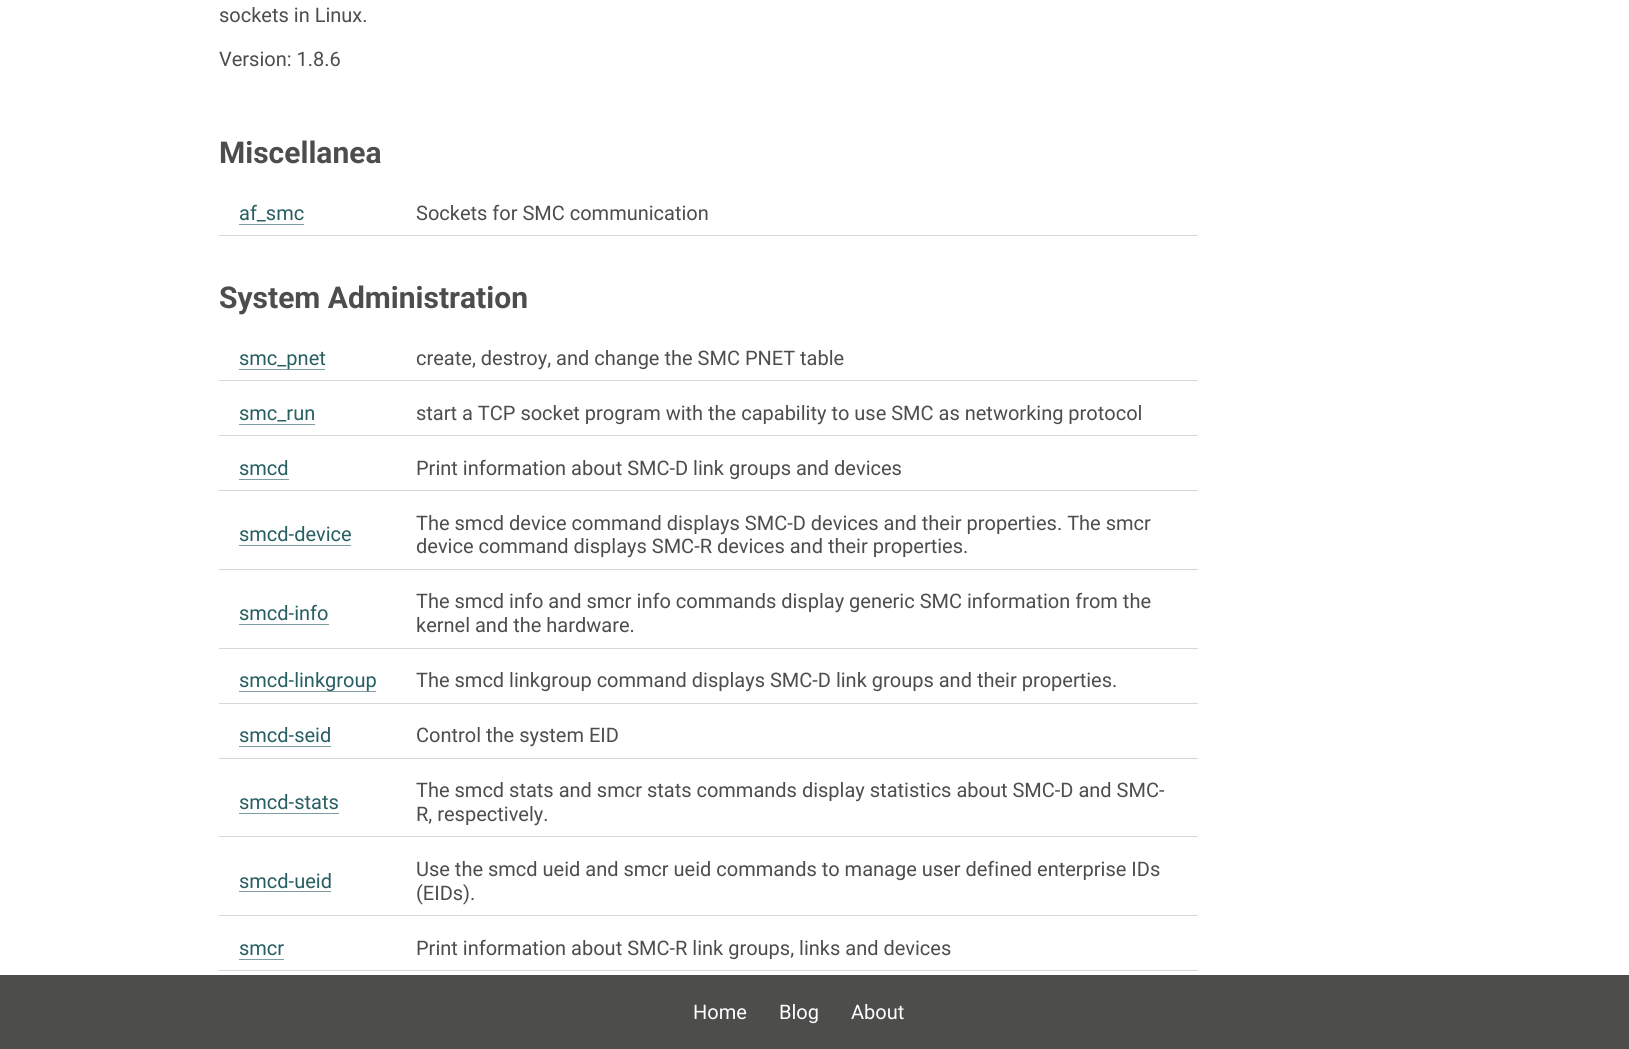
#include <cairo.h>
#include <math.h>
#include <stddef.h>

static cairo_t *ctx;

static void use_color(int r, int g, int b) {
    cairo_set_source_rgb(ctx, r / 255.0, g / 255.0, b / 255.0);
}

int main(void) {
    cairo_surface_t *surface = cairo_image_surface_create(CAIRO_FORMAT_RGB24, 1629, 1049);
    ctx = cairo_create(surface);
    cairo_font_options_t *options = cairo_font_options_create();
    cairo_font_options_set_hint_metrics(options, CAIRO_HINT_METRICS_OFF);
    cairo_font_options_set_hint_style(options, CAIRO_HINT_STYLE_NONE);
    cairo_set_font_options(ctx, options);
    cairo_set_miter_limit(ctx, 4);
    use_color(255, 255, 255);
    cairo_paint(ctx);
    cairo_select_font_face(ctx, "Roboto", CAIRO_FONT_SLANT_NORMAL, CAIRO_FONT_WEIGHT_NORMAL);
    cairo_set_font_size(ctx, 20);
    use_color(77, 77, 76);
    cairo_move_to(ctx, 219, 22);
    cairo_show_text(ctx, "sockets in Linux.");
    cairo_move_to(ctx, 219, 66);
    cairo_show_text(ctx, "Version: 1.8.6");
    cairo_select_font_face(ctx, "Roboto", CAIRO_FONT_SLANT_NORMAL, CAIRO_FONT_WEIGHT_BOLD);
    cairo_set_font_size(ctx, 30);
    cairo_move_to(ctx, 219, 163);
    cairo_show_text(ctx, "Miscellanea");
    cairo_select_font_face(ctx, "Roboto", CAIRO_FONT_SLANT_NORMAL, CAIRO_FONT_WEIGHT_NORMAL);
    cairo_set_font_size(ctx, 20);
    use_color(38, 94, 98);
    cairo_move_to(ctx, 239, 220);
    cairo_show_text(ctx, "af_smc");
    use_color(125, 158, 161);
    cairo_rectangle(ctx, 239, 224, 65, 1);
    cairo_fill(ctx);
    use_color(214, 214, 214);
    cairo_rectangle(ctx, 219, 235, 979, 1);
    cairo_fill(ctx);
    use_color(77, 77, 76);
    cairo_move_to(ctx, 416, 220);
    cairo_show_text(ctx, "Sockets for SMC communication");
    cairo_select_font_face(ctx, "Roboto", CAIRO_FONT_SLANT_NORMAL, CAIRO_FONT_WEIGHT_BOLD);
    cairo_set_font_size(ctx, 30);
    cairo_move_to(ctx, 219, 308);
    cairo_show_text(ctx, "System Administration");
    use_color(125, 158, 161);
    cairo_rectangle(ctx, 239, 369, 86, 1);
    cairo_fill(ctx);
    cairo_select_font_face(ctx, "Roboto", CAIRO_FONT_SLANT_NORMAL, CAIRO_FONT_WEIGHT_NORMAL);
    cairo_set_font_size(ctx, 20);
    use_color(38, 94, 98);
    cairo_move_to(ctx, 239, 365);
    cairo_show_text(ctx, "smc_pnet");
    use_color(214, 214, 214);
    cairo_rectangle(ctx, 219, 380, 979, 1);
    cairo_fill(ctx);
    use_color(77, 77, 76);
    cairo_move_to(ctx, 416, 365);
    cairo_show_text(ctx, "create, destroy, and change the SMC PNET table");
    use_color(38, 94, 98);
    cairo_move_to(ctx, 239, 420);
    cairo_show_text(ctx, "smc_run");
    use_color(125, 158, 161);
    cairo_rectangle(ctx, 239, 424, 76, 1);
    cairo_fill(ctx);
    use_color(214, 214, 214);
    cairo_rectangle(ctx, 219, 435, 979, 1);
    cairo_fill(ctx);
    use_color(77, 77, 76);
    cairo_move_to(ctx, 416, 420);
    cairo_show_text(ctx, "start a TCP socket program with the capability to use SMC as networking protocol");
    use_color(38, 94, 98);
    cairo_move_to(ctx, 239, 475);
    cairo_show_text(ctx, "smcd");
    use_color(125, 158, 161);
    cairo_rectangle(ctx, 239, 479, 50, 1);
    cairo_fill(ctx);
    use_color(214, 214, 214);
    cairo_rectangle(ctx, 219, 490, 979, 1);
    cairo_fill(ctx);
    use_color(77, 77, 76);
    cairo_move_to(ctx, 416, 475);
    cairo_show_text(ctx, "Print information about SMC-D link groups and devices");
    use_color(38, 94, 98);
    cairo_move_to(ctx, 239, 541);
    cairo_show_text(ctx, "smcd-device");
    use_color(125, 158, 161);
    cairo_rectangle(ctx, 239, 545, 112, 1);
    cairo_fill(ctx);
    use_color(214, 214, 214);
    cairo_rectangle(ctx, 219, 569, 979, 1);
    cairo_fill(ctx);
    use_color(77, 77, 76);
    cairo_move_to(ctx, 416, 530);
    cairo_show_text(ctx, "The smcd device command displays SMC-D devices and their properties. The smcr");
    cairo_move_to(ctx, 416, 553);
    cairo_show_text(ctx, "device command displays SMC-R devices and their properties.");
    use_color(38, 94, 98);
    cairo_move_to(ctx, 239, 620);
    cairo_show_text(ctx, "smcd-info");
    use_color(125, 158, 161);
    cairo_rectangle(ctx, 239, 624, 90, 1);
    cairo_fill(ctx);
    use_color(214, 214, 214);
    cairo_rectangle(ctx, 219, 648, 979, 1);
    cairo_fill(ctx);
    use_color(77, 77, 76);
    cairo_move_to(ctx, 416, 608);
    cairo_show_text(ctx, "The smcd info and smcr info commands display generic SMC information from the");
    cairo_move_to(ctx, 416, 632);
    cairo_show_text(ctx, "kernel and the hardware.");
    use_color(125, 158, 161);
    cairo_rectangle(ctx, 239, 691, 137, 1);
    cairo_fill(ctx);
    use_color(38, 94, 98);
    cairo_move_to(ctx, 239, 687);
    cairo_show_text(ctx, "smcd-linkgroup");
    use_color(214, 214, 214);
    cairo_rectangle(ctx, 219, 703, 979, 1);
    cairo_fill(ctx);
    use_color(77, 77, 76);
    cairo_move_to(ctx, 416, 687);
    cairo_show_text(ctx, "The smcd linkgroup command displays SMC-D link groups and their properties.");
    use_color(38, 94, 98);
    cairo_move_to(ctx, 239, 742);
    cairo_show_text(ctx, "smcd-seid");
    use_color(125, 158, 161);
    cairo_rectangle(ctx, 239, 746, 92, 1);
    cairo_fill(ctx);
    use_color(214, 214, 214);
    cairo_rectangle(ctx, 219, 758, 979, 1);
    cairo_fill(ctx);
    use_color(77, 77, 76);
    cairo_move_to(ctx, 416, 742);
    cairo_show_text(ctx, "Control the system EID");
    use_color(38, 94, 98);
    cairo_move_to(ctx, 239, 809);
    cairo_show_text(ctx, "smcd-stats");
    use_color(125, 158, 161);
    cairo_rectangle(ctx, 239, 813, 100, 1);
    cairo_fill(ctx);
    use_color(214, 214, 214);
    cairo_rectangle(ctx, 219, 836, 979, 1);
    cairo_fill(ctx);
    use_color(77, 77, 76);
    cairo_move_to(ctx, 416, 797);
    cairo_show_text(ctx, "The smcd stats and smcr stats commands display statistics about SMC-D and SMC-");
    cairo_move_to(ctx, 416, 821);
    cairo_show_text(ctx, "R, respectively.");
    use_color(38, 94, 98);
    cairo_move_to(ctx, 239, 888);
    cairo_show_text(ctx, "smcd-ueid");
    use_color(125, 158, 161);
    cairo_rectangle(ctx, 239, 891, 92, 1);
    cairo_fill(ctx);
    use_color(214, 214, 214);
    cairo_rectangle(ctx, 219, 915, 979, 1);
    cairo_fill(ctx);
    use_color(77, 77, 76);
    cairo_move_to(ctx, 416, 876);
    cairo_show_text(ctx, "Use the smcd ueid and smcr ueid commands to manage user defined enterprise IDs");
    cairo_move_to(ctx, 416, 900);
    cairo_show_text(ctx, "(EIDs).");
    use_color(38, 94, 98);
    cairo_move_to(ctx, 239, 955);
    cairo_show_text(ctx, "smcr");
    use_color(125, 158, 161);
    cairo_rectangle(ctx, 239, 959, 45, 1);
    cairo_fill(ctx);
    use_color(214, 214, 214);
    cairo_rectangle(ctx, 219, 970, 979, 1);
    cairo_fill(ctx);
    use_color(77, 77, 76);
    cairo_move_to(ctx, 416, 955);
    cairo_show_text(ctx, "Print information about SMC-R link groups, links and devices");
    cairo_rectangle(ctx, 0, 975, 1629, 74);
    cairo_fill(ctx);
    use_color(255, 255, 255);
    cairo_move_to(ctx, 693, 1019);
    cairo_show_text(ctx, "Home");
    cairo_move_to(ctx, 779, 1019);
    cairo_show_text(ctx, "Blog");
    cairo_move_to(ctx, 851, 1019);
    cairo_show_text(ctx, "About");
    cairo_surface_write_to_png(surface, "result.png");
    cairo_font_options_destroy(options);
    cairo_destroy(ctx);
    cairo_surface_destroy(surface);
    return 0;
}
